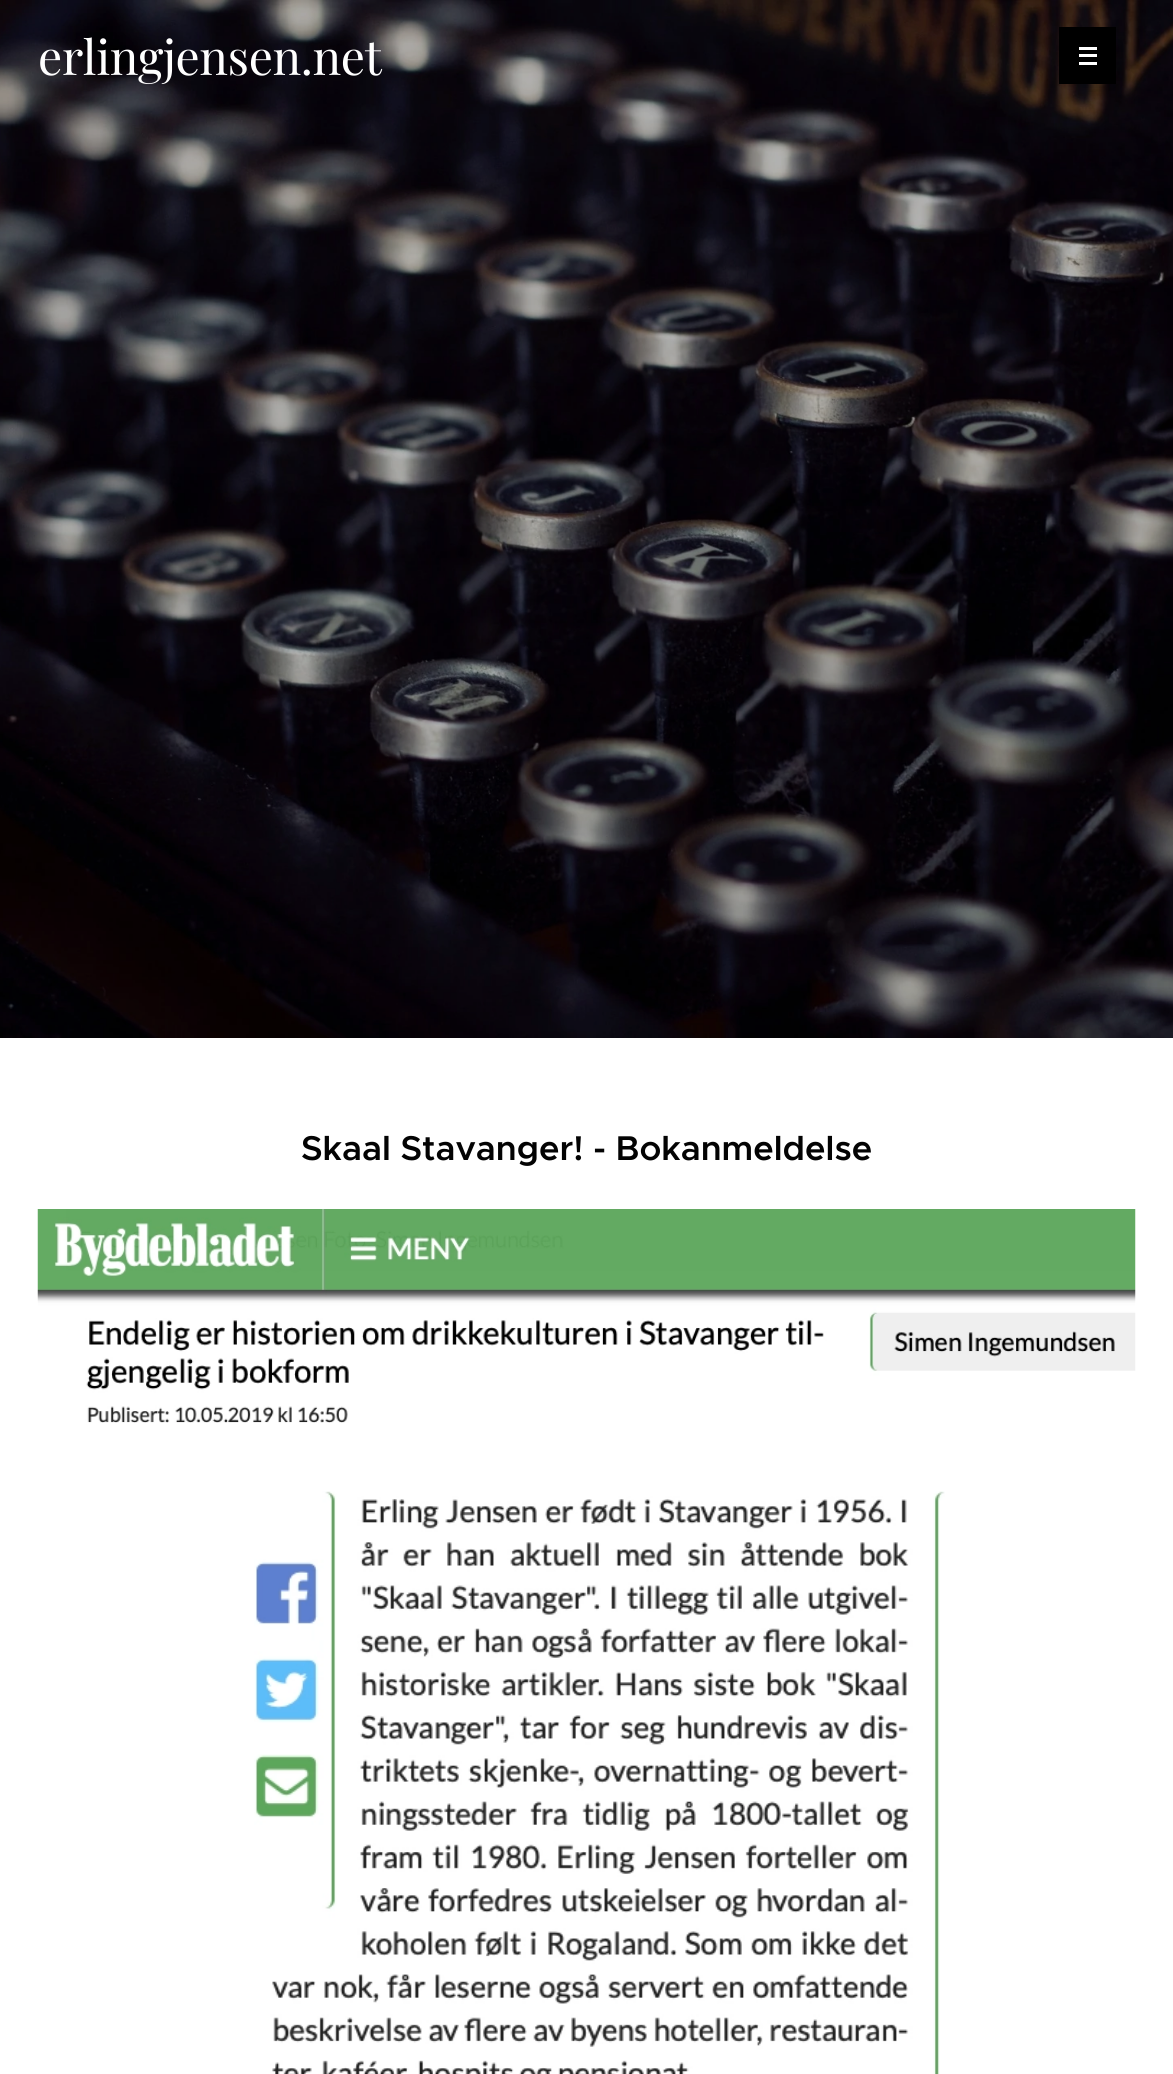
#include <cairo.h>
#include <math.h>
#include <stddef.h>

static cairo_t *ctx;

static void use_color(int r, int g, int b) {
    cairo_set_source_rgb(ctx, r / 255.0, g / 255.0, b / 255.0);
}

static void spaced_text(double x, double y, const char *s, double letter, double word) {
    cairo_move_to(ctx, x, y);
    while (*s) {
        char ch[5] = {0};
        int n = 0;
        do ch[n++] = *s++; while ((*s & 0xC0) == 0x80);
        cairo_show_text(ctx, ch);
        cairo_rel_move_to(ctx, letter + word * (*ch == ' '), 0);
    }
}

static void round_rect(double x, double y, double w, double h, double r) {
    cairo_new_sub_path(ctx);
    cairo_arc(ctx, x + w - r, y + h - r, r, 0, M_PI / 2);
    cairo_arc(ctx, x + r, y + h - r, r, M_PI / 2, M_PI);
    cairo_arc(ctx, x + r, y + r, r, M_PI, 1.5 * M_PI);
    cairo_arc(ctx, x + w - r, y + r, r, 1.5 * M_PI, 2 * M_PI);
    cairo_close_path(ctx);
}

static void shadow(double x, double y, double w, double h, double r, double blur, double alpha) {
    cairo_push_group_with_content(ctx, CAIRO_CONTENT_ALPHA);
    cairo_set_operator(ctx, CAIRO_OPERATOR_SOURCE);
    for (int i = 15; i >= -15 && fmin(w, h) + blur * i / 3 > 0; i -= 2) {
        double e = blur * i / 6;
        cairo_set_source_rgba(ctx, 0, 0, 0, alpha * erfc((i - 1) / 8.5) / 2);
        round_rect(x - e, y - e, w + 2 * e, h + 2 * e, fmax(0, fmin(r + e + blur * .6, fmin(w, h) / 2 + e)));
        cairo_fill(ctx);
    }
    cairo_pattern_t *soft = cairo_pop_group(ctx);
    cairo_mask(ctx, soft);
    cairo_pattern_destroy(soft);
}

static void picture(const char *path, double x, double y, double w, double h) {
    cairo_surface_t *image = cairo_image_surface_create_from_png(path);
    cairo_save(ctx);
    cairo_set_source_surface(ctx, image, x, y);
    cairo_rectangle(ctx, x, y, w, h);
    cairo_fill(ctx);
    cairo_restore(ctx);
    cairo_surface_destroy(image);
}

int main(void) {
    cairo_surface_t *surface = cairo_image_surface_create(CAIRO_FORMAT_RGB24, 1173, 2074);
    ctx = cairo_create(surface);
    cairo_font_options_t *options = cairo_font_options_create();
    cairo_font_options_set_hint_metrics(options, CAIRO_HINT_METRICS_OFF);
    cairo_font_options_set_hint_style(options, CAIRO_HINT_STYLE_NONE);
    cairo_set_font_options(ctx, options);
    cairo_set_miter_limit(ctx, 4);
    use_color(255, 255, 255);
    cairo_paint(ctx);
    picture("img1.png", 0, 0, 1173, 1038);
    cairo_select_font_face(ctx, "Playfair Display", CAIRO_FONT_SLANT_NORMAL, CAIRO_FONT_WEIGHT_NORMAL);
    cairo_set_font_size(ctx, 48);
    use_color(255, 255, 255);
    spaced_text(38, 75, "erlingjensen.net", -0.4, 0);
    use_color(0, 0, 0);
    shadow(1077, 45, 33, 33, 0, 12, 0.5);
    use_color(0, 0, 0);
    cairo_rectangle(ctx, 1059, 27, 57, 57);
    cairo_fill(ctx);
    use_color(255, 255, 255);
    cairo_rectangle(ctx, 1079, 54, 18, 3);
    cairo_fill(ctx);
    cairo_rectangle(ctx, 1079, 47, 18, 3);
    cairo_fill(ctx);
    cairo_rectangle(ctx, 1079, 62, 18, 3);
    cairo_fill(ctx);
    cairo_select_font_face(ctx, "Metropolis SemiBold", CAIRO_FONT_SLANT_NORMAL, CAIRO_FONT_WEIGHT_NORMAL);
    cairo_set_font_size(ctx, 34.5);
    use_color(3, 3, 3);
    cairo_move_to(ctx, 301, 1160);
    cairo_show_text(ctx, "Skaal Stavanger! - Bokanmeldelse");
    picture("img2.png", 37, 1209, 1099, 214);
    picture("img3.png", 254, 1491, 691, 583);
    cairo_surface_write_to_png(surface, "result.png");
    cairo_font_options_destroy(options);
    cairo_destroy(ctx);
    cairo_surface_destroy(surface);
    return 0;
}
